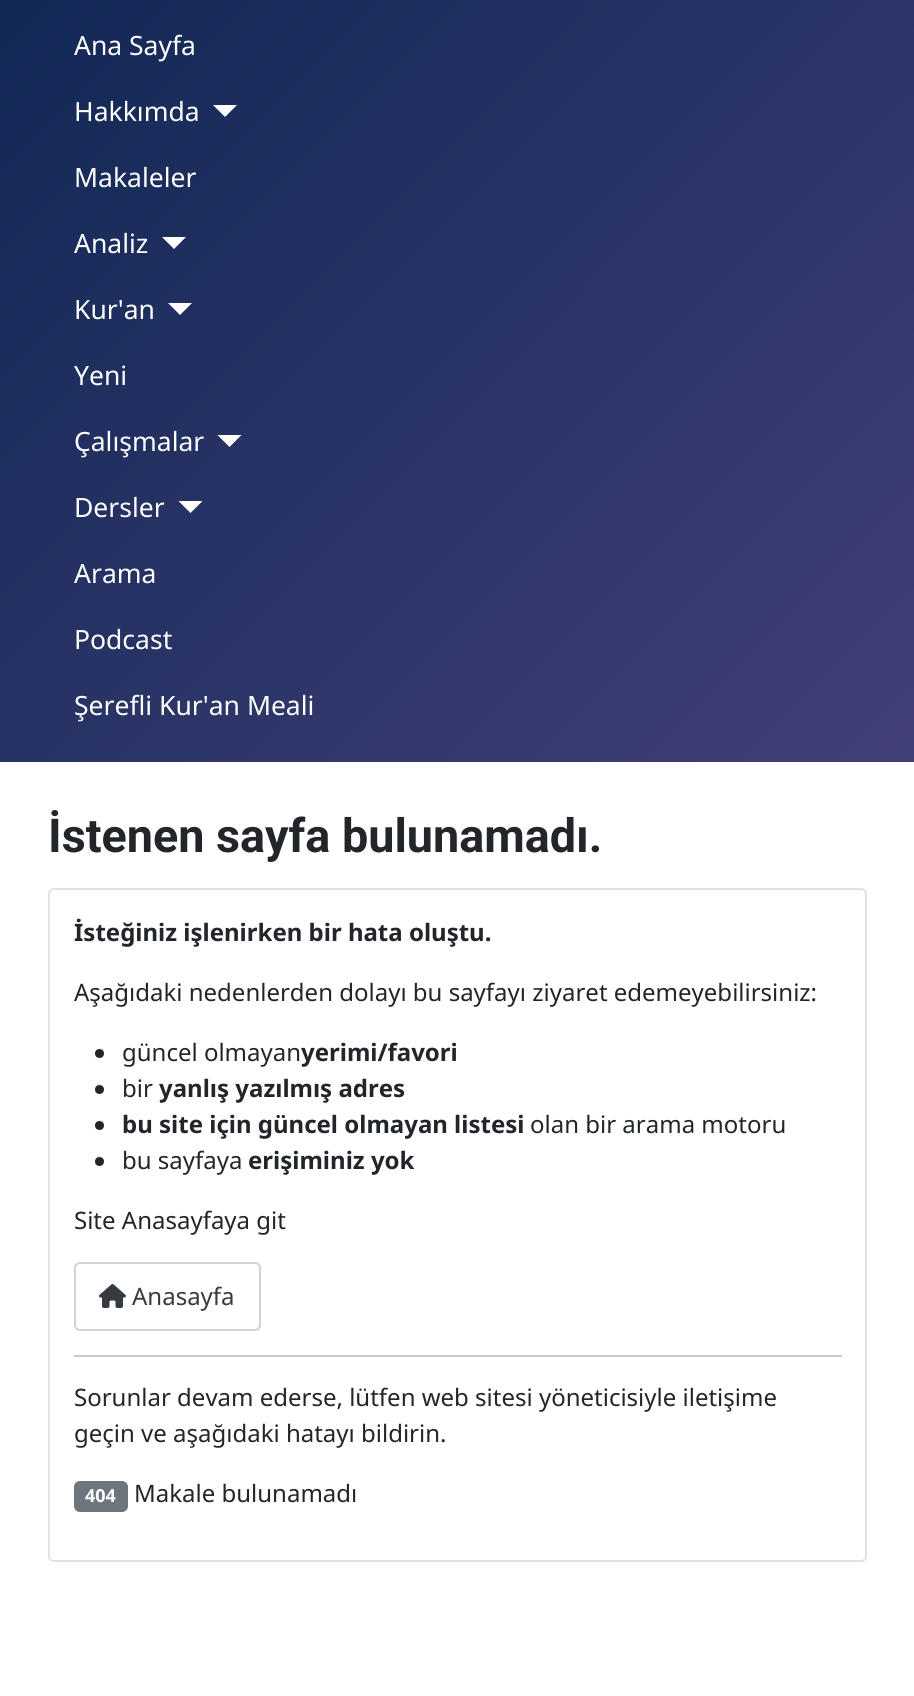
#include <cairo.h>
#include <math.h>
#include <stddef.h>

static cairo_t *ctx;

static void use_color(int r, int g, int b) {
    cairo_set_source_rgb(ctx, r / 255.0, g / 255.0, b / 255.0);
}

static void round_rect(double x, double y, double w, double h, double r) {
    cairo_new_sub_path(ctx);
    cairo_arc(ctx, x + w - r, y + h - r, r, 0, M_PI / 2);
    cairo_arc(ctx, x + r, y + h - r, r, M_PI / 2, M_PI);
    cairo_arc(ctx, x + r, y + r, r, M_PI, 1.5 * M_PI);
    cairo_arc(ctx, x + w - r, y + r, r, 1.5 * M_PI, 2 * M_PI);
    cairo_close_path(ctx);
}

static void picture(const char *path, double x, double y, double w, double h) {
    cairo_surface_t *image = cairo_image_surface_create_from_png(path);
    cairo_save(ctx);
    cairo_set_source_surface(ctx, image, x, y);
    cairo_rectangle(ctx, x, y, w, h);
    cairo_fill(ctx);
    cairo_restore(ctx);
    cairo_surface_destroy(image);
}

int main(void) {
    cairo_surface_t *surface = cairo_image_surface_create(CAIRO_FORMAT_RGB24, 914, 1696);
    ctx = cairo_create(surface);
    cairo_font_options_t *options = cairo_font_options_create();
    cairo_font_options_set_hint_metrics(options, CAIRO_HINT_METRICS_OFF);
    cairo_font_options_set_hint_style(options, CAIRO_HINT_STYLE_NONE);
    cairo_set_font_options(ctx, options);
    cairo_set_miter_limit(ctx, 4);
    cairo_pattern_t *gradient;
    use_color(255, 255, 255);
    cairo_paint(ctx);
    gradient = cairo_pattern_create_linear(38, -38, 877, 800);
    cairo_pattern_add_color_stop_rgba(gradient, 0, 0.067, 0.157, 0.333, 1);
    cairo_pattern_add_color_stop_rgba(gradient, 1, 0.259, 0.251, 0.467, 1);
    cairo_set_source(ctx, gradient);
    cairo_pattern_destroy(gradient);
    cairo_rectangle(ctx, 0, 0, 914, 762);
    cairo_fill(ctx);
    cairo_select_font_face(ctx, "Noto Sans", CAIRO_FONT_SLANT_NORMAL, CAIRO_FONT_WEIGHT_NORMAL);
    cairo_set_font_size(ctx, 26.5);
    use_color(255, 255, 255);
    cairo_move_to(ctx, 74, 55);
    cairo_show_text(ctx, "Ana Sayfa");
    cairo_move_to(ctx, 74, 121);
    cairo_show_text(ctx, "Hakkımda");
    cairo_new_path(ctx);
    cairo_move_to(ctx, 213, 105);
    cairo_line_to(ctx, 237, 105);
    cairo_line_to(ctx, 225, 117);
    cairo_close_path(ctx);
    cairo_fill(ctx);
    cairo_move_to(ctx, 74, 187);
    cairo_show_text(ctx, "Makaleler");
    cairo_move_to(ctx, 74, 253);
    cairo_show_text(ctx, "Analiz");
    cairo_new_path(ctx);
    cairo_move_to(ctx, 162, 237);
    cairo_line_to(ctx, 186, 237);
    cairo_line_to(ctx, 174, 249);
    cairo_close_path(ctx);
    cairo_fill(ctx);
    cairo_move_to(ctx, 74, 319);
    cairo_show_text(ctx, "Kur'an");
    cairo_new_path(ctx);
    cairo_move_to(ctx, 168, 303);
    cairo_line_to(ctx, 192, 303);
    cairo_line_to(ctx, 180, 315);
    cairo_close_path(ctx);
    cairo_fill(ctx);
    cairo_move_to(ctx, 74, 385);
    cairo_show_text(ctx, "Yeni");
    cairo_move_to(ctx, 74, 451);
    cairo_show_text(ctx, "Çalışmalar");
    cairo_new_path(ctx);
    cairo_move_to(ctx, 217.5, 435);
    cairo_line_to(ctx, 241.5, 435);
    cairo_line_to(ctx, 229.5, 447);
    cairo_close_path(ctx);
    cairo_fill(ctx);
    cairo_move_to(ctx, 74, 517);
    cairo_show_text(ctx, "Dersler");
    cairo_new_path(ctx);
    cairo_move_to(ctx, 178.5, 501);
    cairo_line_to(ctx, 202.5, 501);
    cairo_line_to(ctx, 190.5, 513);
    cairo_close_path(ctx);
    cairo_fill(ctx);
    cairo_move_to(ctx, 74, 583);
    cairo_show_text(ctx, "Arama");
    cairo_move_to(ctx, 74, 649);
    cairo_show_text(ctx, "Podcast");
    cairo_move_to(ctx, 74, 715);
    cairo_show_text(ctx, "Şerefli Kur'an Meali");
    cairo_select_font_face(ctx, "Roboto", CAIRO_FONT_SLANT_NORMAL, CAIRO_FONT_WEIGHT_BOLD);
    cairo_set_font_size(ctx, 46.75);
    use_color(34, 38, 42);
    cairo_move_to(ctx, 48, 852);
    cairo_show_text(ctx, "İstenen sayfa bulunamadı.");
    round_rect(49, 889, 817, 672, 5);
    use_color(223, 227, 231);
    cairo_stroke(ctx);
    cairo_select_font_face(ctx, "Noto Sans", CAIRO_FONT_SLANT_NORMAL, CAIRO_FONT_WEIGHT_BOLD);
    cairo_set_font_size(ctx, 24);
    use_color(34, 38, 42);
    cairo_move_to(ctx, 74, 941);
    cairo_show_text(ctx, "İsteğiniz işlenirken bir hata oluştu.");
    cairo_select_font_face(ctx, "Noto Sans", CAIRO_FONT_SLANT_NORMAL, CAIRO_FONT_WEIGHT_NORMAL);
    cairo_move_to(ctx, 74, 1001);
    cairo_show_text(ctx, "Aşağıdaki nedenlerden dolayı bu sayfayı ziyaret edemeyebilirsiniz:");
    cairo_new_path(ctx);
    cairo_arc(ctx, 99.5, 1053.5, 4.5, 0, 2 * M_PI);
    cairo_fill(ctx);
    cairo_move_to(ctx, 122, 1061);
    cairo_show_text(ctx, "güncel olmayan");
    cairo_select_font_face(ctx, "Noto Sans", CAIRO_FONT_SLANT_NORMAL, CAIRO_FONT_WEIGHT_BOLD);
    cairo_move_to(ctx, 301, 1061);
    cairo_show_text(ctx, "yerimi/favori");
    cairo_new_path(ctx);
    cairo_arc(ctx, 99.5, 1089.5, 4.5, 0, 2 * M_PI);
    cairo_fill(ctx);
    cairo_select_font_face(ctx, "Noto Sans", CAIRO_FONT_SLANT_NORMAL, CAIRO_FONT_WEIGHT_NORMAL);
    cairo_move_to(ctx, 122, 1097);
    cairo_show_text(ctx, "bir");
    cairo_select_font_face(ctx, "Noto Sans", CAIRO_FONT_SLANT_NORMAL, CAIRO_FONT_WEIGHT_BOLD);
    cairo_move_to(ctx, 159, 1097);
    cairo_show_text(ctx, "yanlış yazılmış adres");
    cairo_new_path(ctx);
    cairo_arc(ctx, 99.5, 1125.5, 4.5, 0, 2 * M_PI);
    cairo_fill(ctx);
    cairo_move_to(ctx, 122, 1133);
    cairo_show_text(ctx, "bu site için güncel olmayan listesi");
    cairo_select_font_face(ctx, "Noto Sans", CAIRO_FONT_SLANT_NORMAL, CAIRO_FONT_WEIGHT_NORMAL);
    cairo_move_to(ctx, 530, 1133);
    cairo_show_text(ctx, "olan bir arama motoru");
    cairo_new_path(ctx);
    cairo_arc(ctx, 99.5, 1161.5, 4.5, 0, 2 * M_PI);
    cairo_fill(ctx);
    cairo_move_to(ctx, 122, 1169);
    cairo_show_text(ctx, "bu sayfaya");
    cairo_select_font_face(ctx, "Noto Sans", CAIRO_FONT_SLANT_NORMAL, CAIRO_FONT_WEIGHT_BOLD);
    cairo_move_to(ctx, 248, 1169);
    cairo_show_text(ctx, "erişiminiz yok");
    cairo_select_font_face(ctx, "Noto Sans", CAIRO_FONT_SLANT_NORMAL, CAIRO_FONT_WEIGHT_NORMAL);
    cairo_move_to(ctx, 74, 1229);
    cairo_show_text(ctx, "Site Anasayfaya git");
    round_rect(75, 1263, 185, 67, 5);
    use_color(206, 212, 218);
    cairo_stroke(ctx);
    picture("img1.png", 99, 1284, 27, 24);
    use_color(53, 59, 65);
    cairo_move_to(ctx, 132, 1305);
    cairo_show_text(ctx, "Anasayfa");
    use_color(200, 201, 202);
    cairo_rectangle(ctx, 74, 1355, 768, 2);
    cairo_fill(ctx);
    use_color(34, 38, 42);
    cairo_move_to(ctx, 74, 1406);
    cairo_show_text(ctx, "Sorunlar devam ederse, lütfen web sitesi yöneticisiyle iletişime");
    cairo_move_to(ctx, 74, 1442);
    cairo_show_text(ctx, "geçin ve aşağıdaki hatayı bildirin.");
    use_color(109, 117, 126);
    round_rect(74, 1481, 54, 31, 6);
    cairo_fill(ctx);
    cairo_select_font_face(ctx, "Noto Sans", CAIRO_FONT_SLANT_NORMAL, CAIRO_FONT_WEIGHT_BOLD);
    cairo_set_font_size(ctx, 18);
    use_color(255, 255, 255);
    cairo_move_to(ctx, 85, 1502);
    cairo_show_text(ctx, "404");
    cairo_select_font_face(ctx, "Noto Sans", CAIRO_FONT_SLANT_NORMAL, CAIRO_FONT_WEIGHT_NORMAL);
    cairo_set_font_size(ctx, 24);
    use_color(34, 38, 42);
    cairo_move_to(ctx, 134, 1502);
    cairo_show_text(ctx, "Makale bulunamadı");
    cairo_surface_write_to_png(surface, "result.png");
    cairo_font_options_destroy(options);
    cairo_destroy(ctx);
    cairo_surface_destroy(surface);
    return 0;
}
